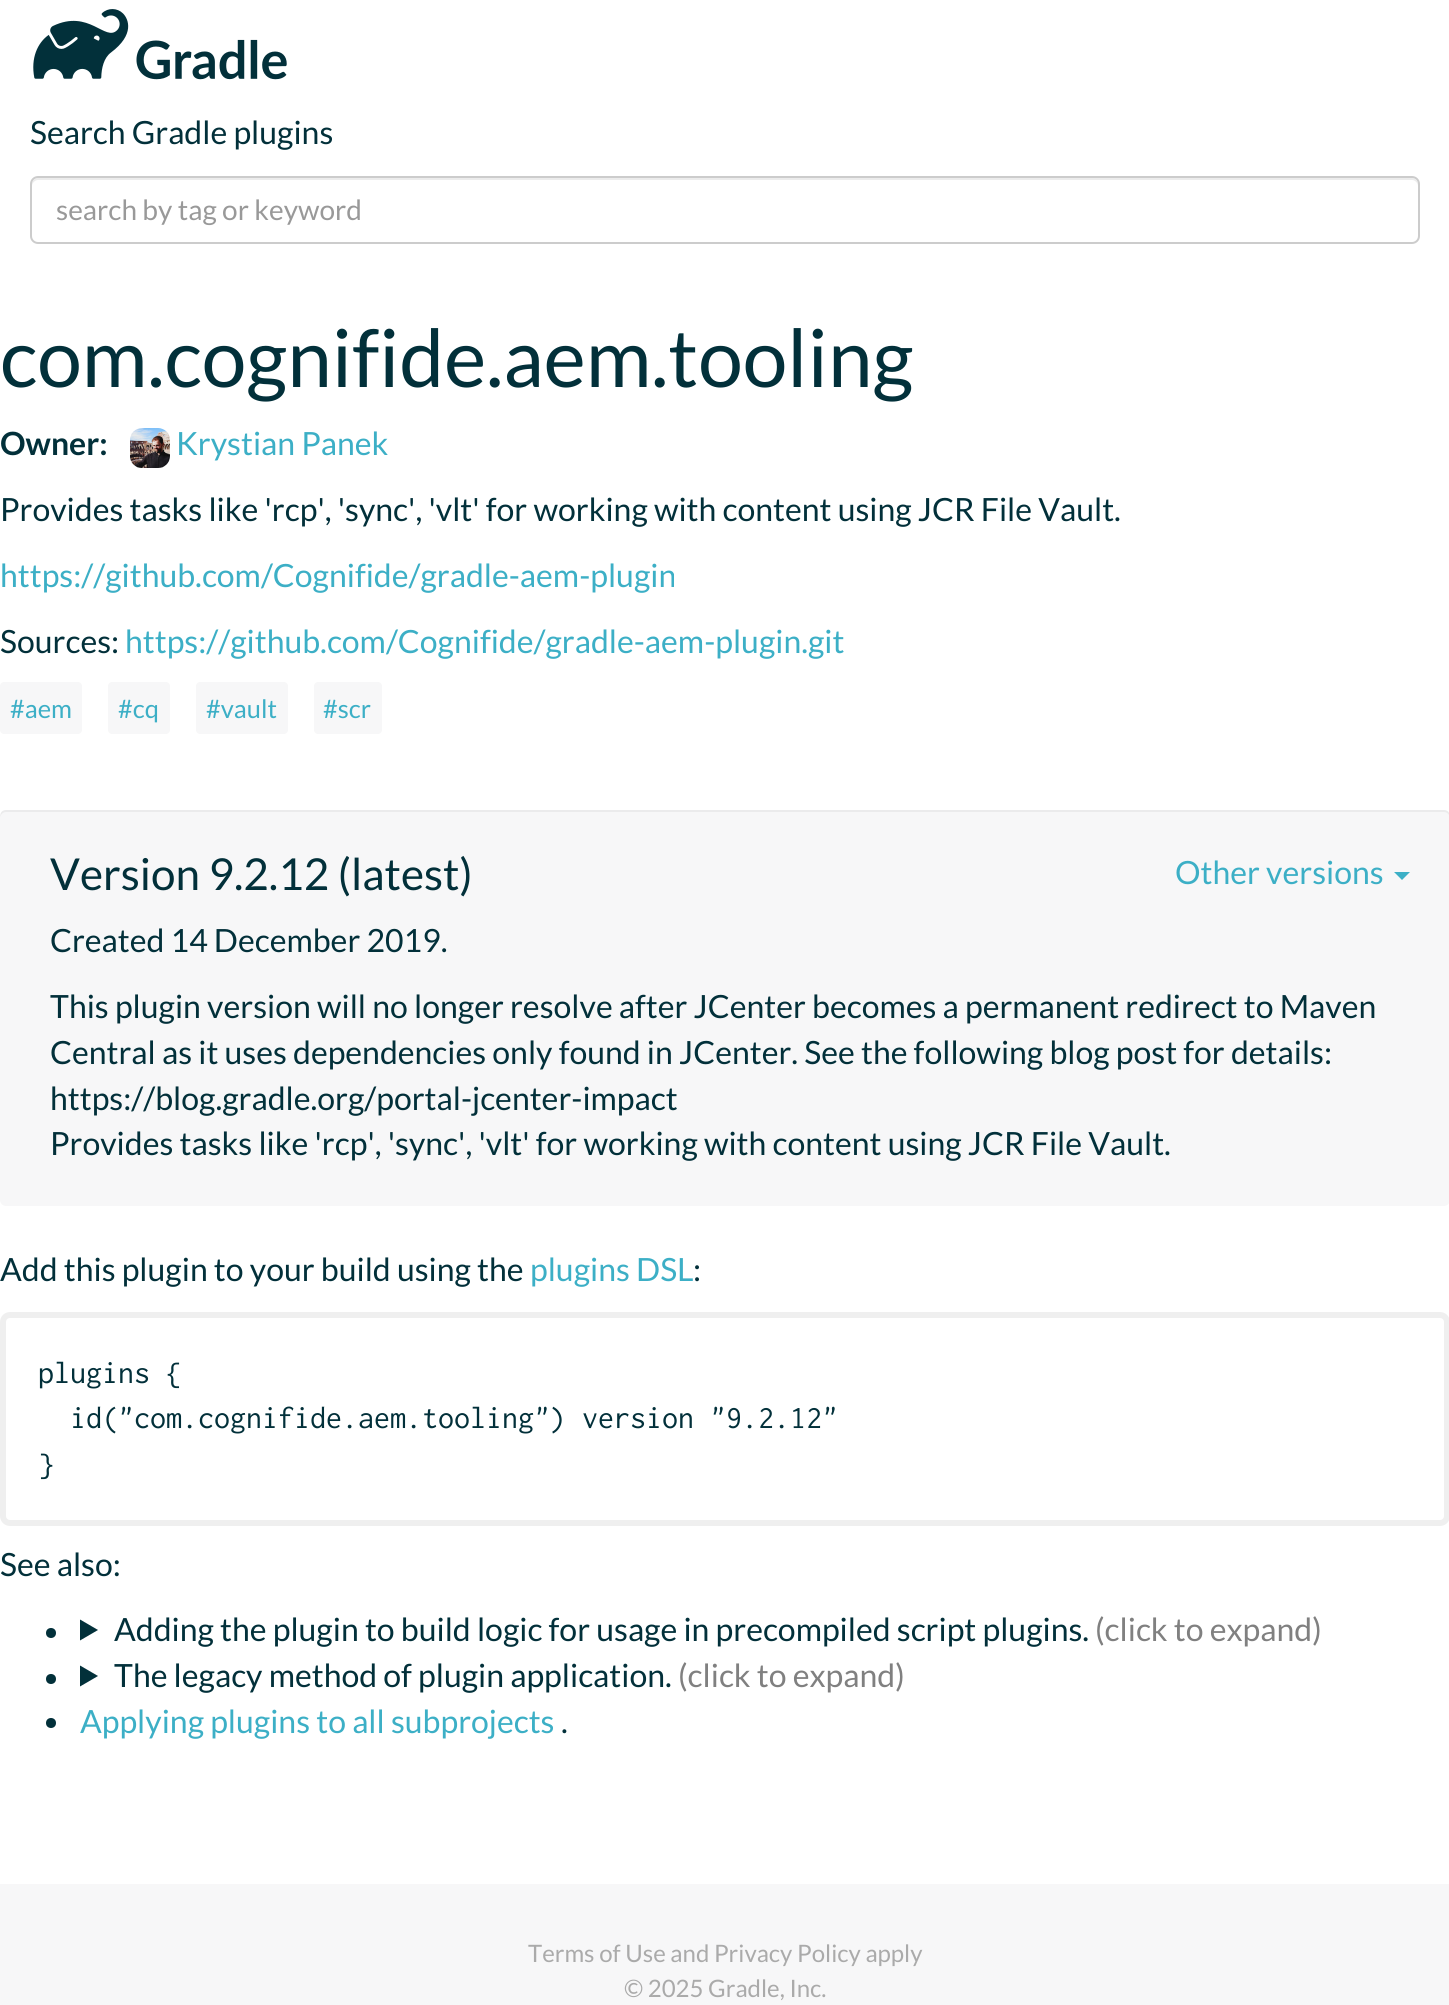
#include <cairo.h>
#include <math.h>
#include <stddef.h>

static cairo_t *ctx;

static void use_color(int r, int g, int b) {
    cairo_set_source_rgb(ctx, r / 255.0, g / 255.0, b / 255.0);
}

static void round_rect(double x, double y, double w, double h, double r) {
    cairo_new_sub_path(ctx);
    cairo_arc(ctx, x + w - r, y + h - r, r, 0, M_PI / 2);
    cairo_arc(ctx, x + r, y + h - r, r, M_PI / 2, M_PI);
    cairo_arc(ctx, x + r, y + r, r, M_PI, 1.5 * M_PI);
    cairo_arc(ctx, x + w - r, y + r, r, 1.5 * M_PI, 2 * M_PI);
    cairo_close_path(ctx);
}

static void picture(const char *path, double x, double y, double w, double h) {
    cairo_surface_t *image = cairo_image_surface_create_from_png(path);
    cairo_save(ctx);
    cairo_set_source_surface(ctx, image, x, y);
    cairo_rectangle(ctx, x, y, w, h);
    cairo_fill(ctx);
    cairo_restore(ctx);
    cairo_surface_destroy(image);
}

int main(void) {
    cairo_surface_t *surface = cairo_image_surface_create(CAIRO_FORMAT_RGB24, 1449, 2005);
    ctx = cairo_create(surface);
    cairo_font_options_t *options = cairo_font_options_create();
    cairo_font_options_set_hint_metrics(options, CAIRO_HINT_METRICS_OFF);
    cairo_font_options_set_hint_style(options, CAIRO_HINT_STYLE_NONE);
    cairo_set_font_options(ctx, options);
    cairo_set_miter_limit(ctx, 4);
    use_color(255, 255, 255);
    cairo_paint(ctx);
    picture("img1.png", 33, 9, 254, 71);
    cairo_select_font_face(ctx, "Lato", CAIRO_FONT_SLANT_NORMAL, CAIRO_FONT_WEIGHT_NORMAL);
    cairo_set_font_size(ctx, 32);
    use_color(2, 48, 58);
    cairo_move_to(ctx, 30, 144);
    cairo_show_text(ctx, "Search Gradle plugins");
    use_color(236, 236, 236);
    cairo_new_path(ctx);
    cairo_move_to(ctx, 38, 180);
    cairo_line_to(ctx, 1412, 180);
    cairo_curve_to(ctx, 1415, 180, 1418, 183, 1418, 186);
    cairo_line_to(ctx, 1418, 184);
    cairo_curve_to(ctx, 1418, 181, 1415, 178, 1412, 178);
    cairo_line_to(ctx, 38, 178);
    cairo_curve_to(ctx, 35, 178, 32, 181, 32, 184);
    cairo_line_to(ctx, 32, 186);
    cairo_curve_to(ctx, 32, 183, 35, 180, 38, 180);
    cairo_close_path(ctx);
    cairo_fill(ctx);
    round_rect(31, 177, 1388, 66, 7);
    use_color(204, 204, 204);
    cairo_stroke(ctx);
    cairo_set_font_size(ctx, 28);
    use_color(153, 153, 153);
    cairo_move_to(ctx, 56, 220);
    cairo_show_text(ctx, "search by tag or keyword");
    cairo_set_font_size(ctx, 80);
    use_color(2, 48, 58);
    cairo_move_to(ctx, 0, 387);
    cairo_show_text(ctx, "com.cognifide.aem.tooling");
    cairo_select_font_face(ctx, "Lato", CAIRO_FONT_SLANT_NORMAL, CAIRO_FONT_WEIGHT_BOLD);
    cairo_set_font_size(ctx, 32);
    cairo_move_to(ctx, 0, 455);
    cairo_show_text(ctx, "Owner:");
    picture("img2.png", 130, 428, 40, 40);
    cairo_select_font_face(ctx, "Lato", CAIRO_FONT_SLANT_NORMAL, CAIRO_FONT_WEIGHT_NORMAL);
    use_color(60, 175, 198);
    cairo_move_to(ctx, 176, 455);
    cairo_show_text(ctx, "Krystian Panek");
    use_color(2, 48, 58);
    cairo_move_to(ctx, 0, 521);
    cairo_show_text(ctx, "Provides tasks like 'rcp', 'sync', 'vlt' for working with content using JCR File Vault.");
    use_color(60, 175, 198);
    cairo_move_to(ctx, 0, 587);
    cairo_show_text(ctx, "https://github.com/Cognifide/gradle-aem-plugin");
    use_color(2, 48, 58);
    cairo_move_to(ctx, 0, 653);
    cairo_show_text(ctx, "Sources:");
    use_color(60, 175, 198);
    cairo_move_to(ctx, 125, 653);
    cairo_show_text(ctx, "https://github.com/Cognifide/gradle-aem-plugin.git");
    use_color(247, 247, 248);
    round_rect(0, 682, 82, 52, 4);
    cairo_fill(ctx);
    cairo_set_font_size(ctx, 25.5);
    use_color(60, 175, 198);
    cairo_move_to(ctx, 10, 718);
    cairo_show_text(ctx, "#aem");
    use_color(247, 247, 248);
    round_rect(108, 682, 62, 52, 4);
    cairo_fill(ctx);
    use_color(60, 175, 198);
    cairo_move_to(ctx, 118, 718);
    cairo_show_text(ctx, "#cq");
    use_color(247, 247, 248);
    round_rect(196, 682, 92, 52, 4);
    cairo_fill(ctx);
    use_color(60, 175, 198);
    cairo_move_to(ctx, 206, 718);
    cairo_show_text(ctx, "#vault");
    use_color(247, 247, 248);
    round_rect(314, 682, 68, 52, 4);
    cairo_fill(ctx);
    use_color(60, 175, 198);
    cairo_move_to(ctx, 323, 718);
    cairo_show_text(ctx, "#scr");
    use_color(247, 247, 248);
    round_rect(0, 810, 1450, 396, 6);
    cairo_fill(ctx);
    cairo_set_source_rgba(ctx, 0, 0, 0, 0.05);
    cairo_new_path(ctx);
    cairo_move_to(ctx, 6, 812);
    cairo_line_to(ctx, 1444, 812);
    cairo_curve_to(ctx, 1447, 812, 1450, 815, 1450, 818);
    cairo_curve_to(ctx, 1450, 814, 1449, 810, 1444, 810);
    cairo_line_to(ctx, 6, 810);
    cairo_curve_to(ctx, 1, 810, 0, 814, 0, 818);
    cairo_curve_to(ctx, 0, 815, 3, 812, 6, 812);
    cairo_close_path(ctx);
    cairo_fill(ctx);
    cairo_set_font_size(ctx, 44);
    use_color(2, 48, 58);
    cairo_move_to(ctx, 50, 890);
    cairo_show_text(ctx, "Version 9.2.12 (latest)");
    cairo_set_font_size(ctx, 32);
    use_color(60, 175, 198);
    cairo_move_to(ctx, 1175, 884);
    cairo_show_text(ctx, "Other versions");
    cairo_new_path(ctx);
    cairo_move_to(ctx, 1394, 872);
    cairo_line_to(ctx, 1410, 872);
    cairo_line_to(ctx, 1402, 880);
    cairo_close_path(ctx);
    cairo_fill(ctx);
    use_color(2, 48, 58);
    cairo_move_to(ctx, 50, 952);
    cairo_show_text(ctx, "Created 14 December 2019.");
    cairo_move_to(ctx, 50, 1018);
    cairo_show_text(ctx, "This plugin version will no longer resolve after JCenter becomes a permanent redirect to Maven");
    cairo_move_to(ctx, 50, 1064);
    cairo_show_text(ctx, "Central as it uses dependencies only found in JCenter. See the following blog post for details:");
    cairo_move_to(ctx, 50, 1110);
    cairo_show_text(ctx, "https://blog.gradle.org/portal-jcenter-impact");
    cairo_move_to(ctx, 50, 1155);
    cairo_show_text(ctx, "Provides tasks like 'rcp', 'sync', 'vlt' for working with content using JCR File Vault.");
    cairo_move_to(ctx, 0, 1281);
    cairo_show_text(ctx, "Add this plugin to your build using the");
    use_color(60, 175, 198);
    cairo_move_to(ctx, 530, 1281);
    cairo_show_text(ctx, "plugins DSL");
    use_color(2, 48, 58);
    cairo_move_to(ctx, 693, 1281);
    cairo_show_text(ctx, ":");
    round_rect(3, 1315, 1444, 208, 7);
    use_color(239, 239, 239);
    cairo_set_line_width(ctx, 6);
    cairo_stroke(ctx);
    cairo_select_font_face(ctx, "Inconsolata Medium", CAIRO_FONT_SLANT_NORMAL, CAIRO_FONT_WEIGHT_NORMAL);
    use_color(2, 48, 58);
    cairo_move_to(ctx, 38, 1383);
    cairo_show_text(ctx, "plugins {");
    cairo_move_to(ctx, 70, 1428);
    cairo_show_text(ctx, "id(\"com.cognifide.aem.tooling\") version \"9.2.12\"");
    cairo_move_to(ctx, 38, 1474);
    cairo_show_text(ctx, "}");
    cairo_select_font_face(ctx, "Lato", CAIRO_FONT_SLANT_NORMAL, CAIRO_FONT_WEIGHT_NORMAL);
    cairo_move_to(ctx, 0, 1576);
    cairo_show_text(ctx, "See also:");
    cairo_new_path(ctx);
    cairo_arc(ctx, 51, 1633, 5, 0, 2 * M_PI);
    cairo_fill(ctx);
    cairo_new_path(ctx);
    cairo_move_to(ctx, 80, 1619.5);
    cairo_line_to(ctx, 98, 1630);
    cairo_line_to(ctx, 80, 1640.5);
    cairo_close_path(ctx);
    cairo_fill(ctx);
    cairo_move_to(ctx, 114, 1641);
    cairo_show_text(ctx, "Adding the plugin to build logic for usage in precompiled script plugins.");
    use_color(128, 128, 128);
    cairo_move_to(ctx, 1095, 1641);
    cairo_show_text(ctx, "(click to expand)");
    use_color(2, 48, 58);
    cairo_new_path(ctx);
    cairo_arc(ctx, 51, 1679, 5, 0, 2 * M_PI);
    cairo_fill(ctx);
    cairo_new_path(ctx);
    cairo_move_to(ctx, 80, 1665.5);
    cairo_line_to(ctx, 98, 1676);
    cairo_line_to(ctx, 80, 1686.5);
    cairo_close_path(ctx);
    cairo_fill(ctx);
    cairo_move_to(ctx, 114, 1687);
    cairo_show_text(ctx, "The legacy method of plugin application.");
    use_color(128, 128, 128);
    cairo_move_to(ctx, 678, 1687);
    cairo_show_text(ctx, "(click to expand)");
    use_color(2, 48, 58);
    cairo_new_path(ctx);
    cairo_arc(ctx, 51, 1723, 5, 0, 2 * M_PI);
    cairo_fill(ctx);
    use_color(60, 175, 198);
    cairo_move_to(ctx, 80, 1733);
    cairo_show_text(ctx, "Applying plugins to all subprojects");
    use_color(2, 48, 58);
    cairo_move_to(ctx, 561, 1733);
    cairo_show_text(ctx, ".");
    use_color(247, 247, 248);
    cairo_rectangle(ctx, 0, 1884, 1449, 121);
    cairo_fill(ctx);
    cairo_set_font_size(ctx, 24);
    use_color(170, 170, 170);
    cairo_move_to(ctx, 528, 1962);
    cairo_show_text(ctx, "Terms of Use and Privacy Policy apply");
    cairo_move_to(ctx, 624, 1997);
    cairo_show_text(ctx, "© 2025 Gradle, Inc.");
    cairo_surface_write_to_png(surface, "result.png");
    cairo_font_options_destroy(options);
    cairo_destroy(ctx);
    cairo_surface_destroy(surface);
    return 0;
}
